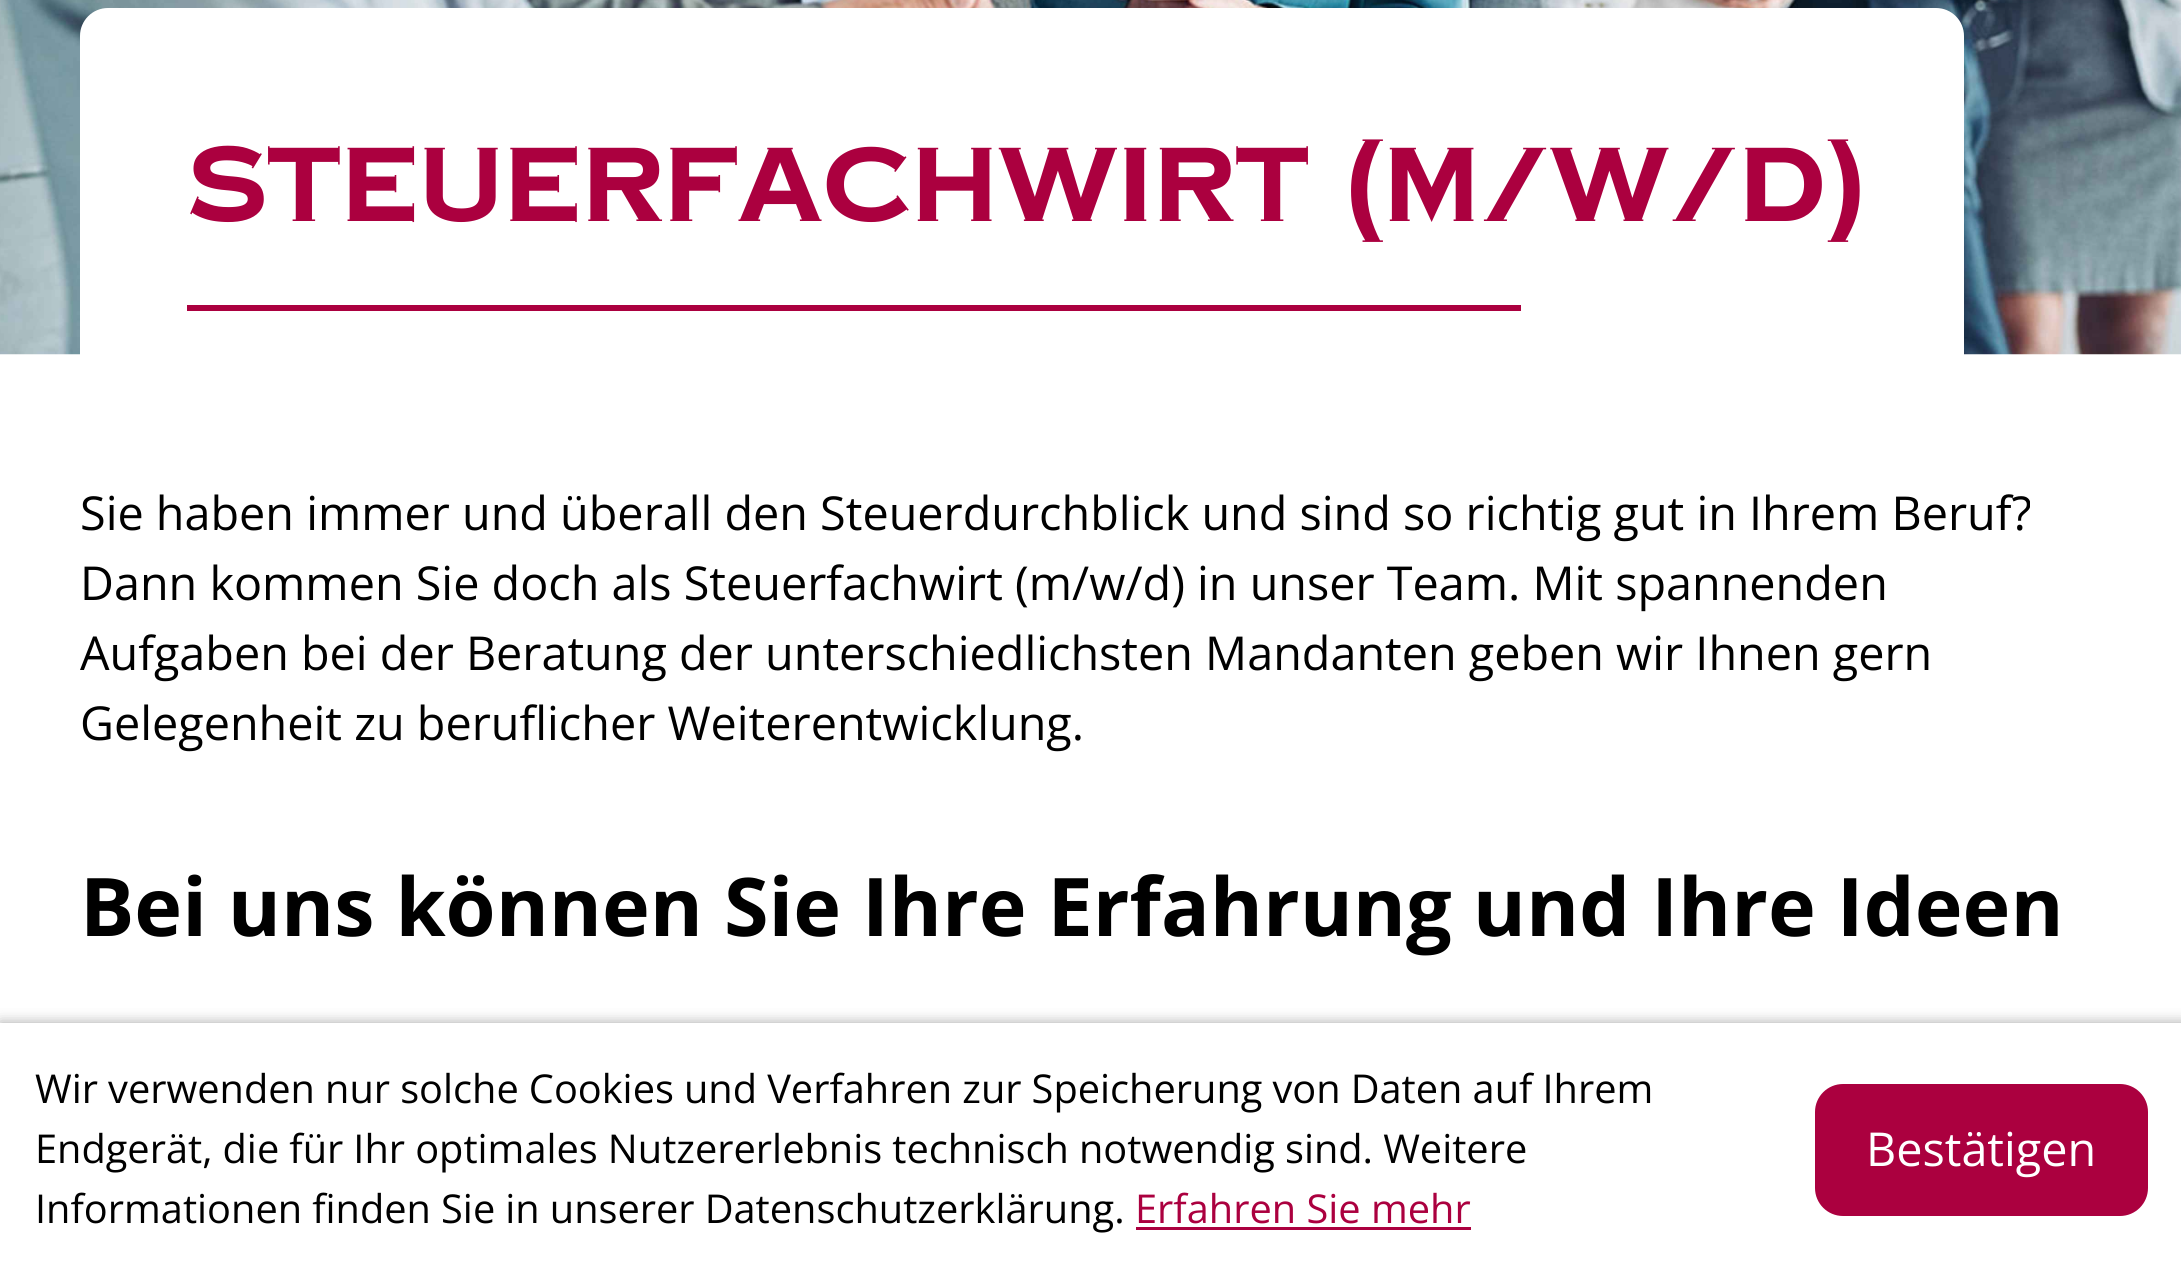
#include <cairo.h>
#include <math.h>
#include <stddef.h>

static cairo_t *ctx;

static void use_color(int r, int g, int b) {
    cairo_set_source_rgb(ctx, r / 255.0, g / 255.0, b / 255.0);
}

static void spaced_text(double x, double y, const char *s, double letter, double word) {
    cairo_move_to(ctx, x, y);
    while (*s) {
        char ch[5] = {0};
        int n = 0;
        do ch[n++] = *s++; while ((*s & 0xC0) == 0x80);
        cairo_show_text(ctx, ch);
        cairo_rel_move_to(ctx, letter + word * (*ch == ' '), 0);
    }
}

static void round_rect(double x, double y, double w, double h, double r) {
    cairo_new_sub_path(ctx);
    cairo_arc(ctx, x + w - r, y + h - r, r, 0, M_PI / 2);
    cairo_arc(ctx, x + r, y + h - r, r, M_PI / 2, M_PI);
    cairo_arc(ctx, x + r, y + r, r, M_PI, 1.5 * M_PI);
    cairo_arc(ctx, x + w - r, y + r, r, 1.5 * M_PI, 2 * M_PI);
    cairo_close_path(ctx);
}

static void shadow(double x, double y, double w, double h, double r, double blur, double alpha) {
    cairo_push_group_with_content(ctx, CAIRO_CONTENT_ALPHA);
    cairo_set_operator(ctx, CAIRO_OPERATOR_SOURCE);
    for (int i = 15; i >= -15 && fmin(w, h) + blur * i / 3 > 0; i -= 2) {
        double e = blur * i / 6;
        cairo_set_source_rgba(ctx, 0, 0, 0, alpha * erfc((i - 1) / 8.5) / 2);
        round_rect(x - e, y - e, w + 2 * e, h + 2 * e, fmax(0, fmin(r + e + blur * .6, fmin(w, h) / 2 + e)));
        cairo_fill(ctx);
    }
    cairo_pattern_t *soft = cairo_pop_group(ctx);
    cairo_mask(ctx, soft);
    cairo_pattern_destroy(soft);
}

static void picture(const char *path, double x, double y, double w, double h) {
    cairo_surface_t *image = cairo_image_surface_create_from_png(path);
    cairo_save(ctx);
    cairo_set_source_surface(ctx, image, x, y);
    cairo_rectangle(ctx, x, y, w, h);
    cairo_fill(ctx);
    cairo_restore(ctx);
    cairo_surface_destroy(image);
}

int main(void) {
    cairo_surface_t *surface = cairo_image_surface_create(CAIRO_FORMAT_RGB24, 2181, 1273);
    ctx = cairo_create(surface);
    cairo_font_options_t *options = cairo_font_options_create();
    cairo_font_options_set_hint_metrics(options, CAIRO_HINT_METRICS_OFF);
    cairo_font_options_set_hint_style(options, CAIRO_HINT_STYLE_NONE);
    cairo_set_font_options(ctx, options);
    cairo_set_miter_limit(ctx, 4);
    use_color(255, 255, 255);
    cairo_paint(ctx);
    picture("img1.png", 0, 0, 2181, 355);
    use_color(255, 255, 255);
    cairo_new_path(ctx);
    cairo_move_to(ctx, 108, 8);
    cairo_line_to(ctx, 1936, 8);
    cairo_curve_to(ctx, 1951.5, 8, 1964, 20.5, 1964, 36);
    cairo_line_to(ctx, 1964, 358);
    cairo_line_to(ctx, 80, 358);
    cairo_line_to(ctx, 80, 36);
    cairo_curve_to(ctx, 80, 20.5, 92.5, 8, 108, 8);
    cairo_close_path(ctx);
    cairo_fill(ctx);
    cairo_select_font_face(ctx, "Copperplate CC", CAIRO_FONT_SLANT_NORMAL, CAIRO_FONT_WEIGHT_BOLD);
    cairo_set_font_size(ctx, 104.6);
    use_color(171, 0, 63);
    spaced_text(187, 221, "Steuerfachwirt (m/w/d)", 0, -6);
    cairo_rectangle(ctx, 187, 305, 1334, 6);
    cairo_fill(ctx);
    cairo_select_font_face(ctx, "Open Sans", CAIRO_FONT_SLANT_NORMAL, CAIRO_FONT_WEIGHT_NORMAL);
    cairo_set_font_size(ctx, 46.75);
    use_color(0, 0, 0);
    cairo_move_to(ctx, 80, 530);
    cairo_show_text(ctx, "Sie haben immer und überall den Steuerdurchblick und sind so richtig gut in Ihrem Beruf?");
    cairo_move_to(ctx, 80, 600);
    cairo_show_text(ctx, "Dann kommen Sie doch als Steuerfachwirt (m/w/d) in unser Team. Mit spannenden");
    cairo_move_to(ctx, 80, 670);
    cairo_show_text(ctx, "Aufgaben bei der Beratung der unterschiedlichsten Mandanten geben wir Ihnen gern");
    cairo_move_to(ctx, 80, 740);
    cairo_show_text(ctx, "Gelegenheit zu beruflicher Weiterentwicklung.");
    cairo_select_font_face(ctx, "Open Sans", CAIRO_FONT_SLANT_NORMAL, CAIRO_FONT_WEIGHT_BOLD);
    cairo_set_font_size(ctx, 80.9);
    cairo_move_to(ctx, 80, 936);
    cairo_show_text(ctx, "Bei uns können Sie Ihre Erfahrung und Ihre Ideen");
    use_color(0, 0, 0);
    shadow(0, 1023, 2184, 250, 0, 7, 0.35);
    use_color(255, 255, 255);
    cairo_rectangle(ctx, 0, 1023, 2181, 250);
    cairo_fill(ctx);
    cairo_select_font_face(ctx, "Open Sans", CAIRO_FONT_SLANT_NORMAL, CAIRO_FONT_WEIGHT_NORMAL);
    cairo_set_font_size(ctx, 39.75);
    use_color(0, 0, 0);
    spaced_text(35, 1103, "Wir verwenden nur solche Cookies und Verfahren zur Speicherung von Daten auf Ihrem", 0, -0.25);
    spaced_text(35, 1163, "Endgerät, die für Ihr optimales Nutzererlebnis technisch notwendig sind. Weitere", 0, -0.25);
    spaced_text(35, 1223, "Informationen finden Sie in unserer Datenschutzerklärung.", 0, -0.25);
    use_color(171, 0, 63);
    cairo_move_to(ctx, 1135, 1223);
    cairo_show_text(ctx, "Erfahren Sie mehr");
    cairo_rectangle(ctx, 1136, 1227, 335, 3);
    cairo_fill(ctx);
    round_rect(1818, 1087, 327, 126, 25);
    cairo_fill_preserve(ctx);
    cairo_set_line_width(ctx, 6);
    cairo_stroke(ctx);
    cairo_set_font_size(ctx, 46.75);
    use_color(255, 255, 255);
    cairo_move_to(ctx, 1866, 1166);
    cairo_show_text(ctx, "Bestätigen");
    cairo_surface_write_to_png(surface, "result.png");
    cairo_font_options_destroy(options);
    cairo_destroy(ctx);
    cairo_surface_destroy(surface);
    return 0;
}
